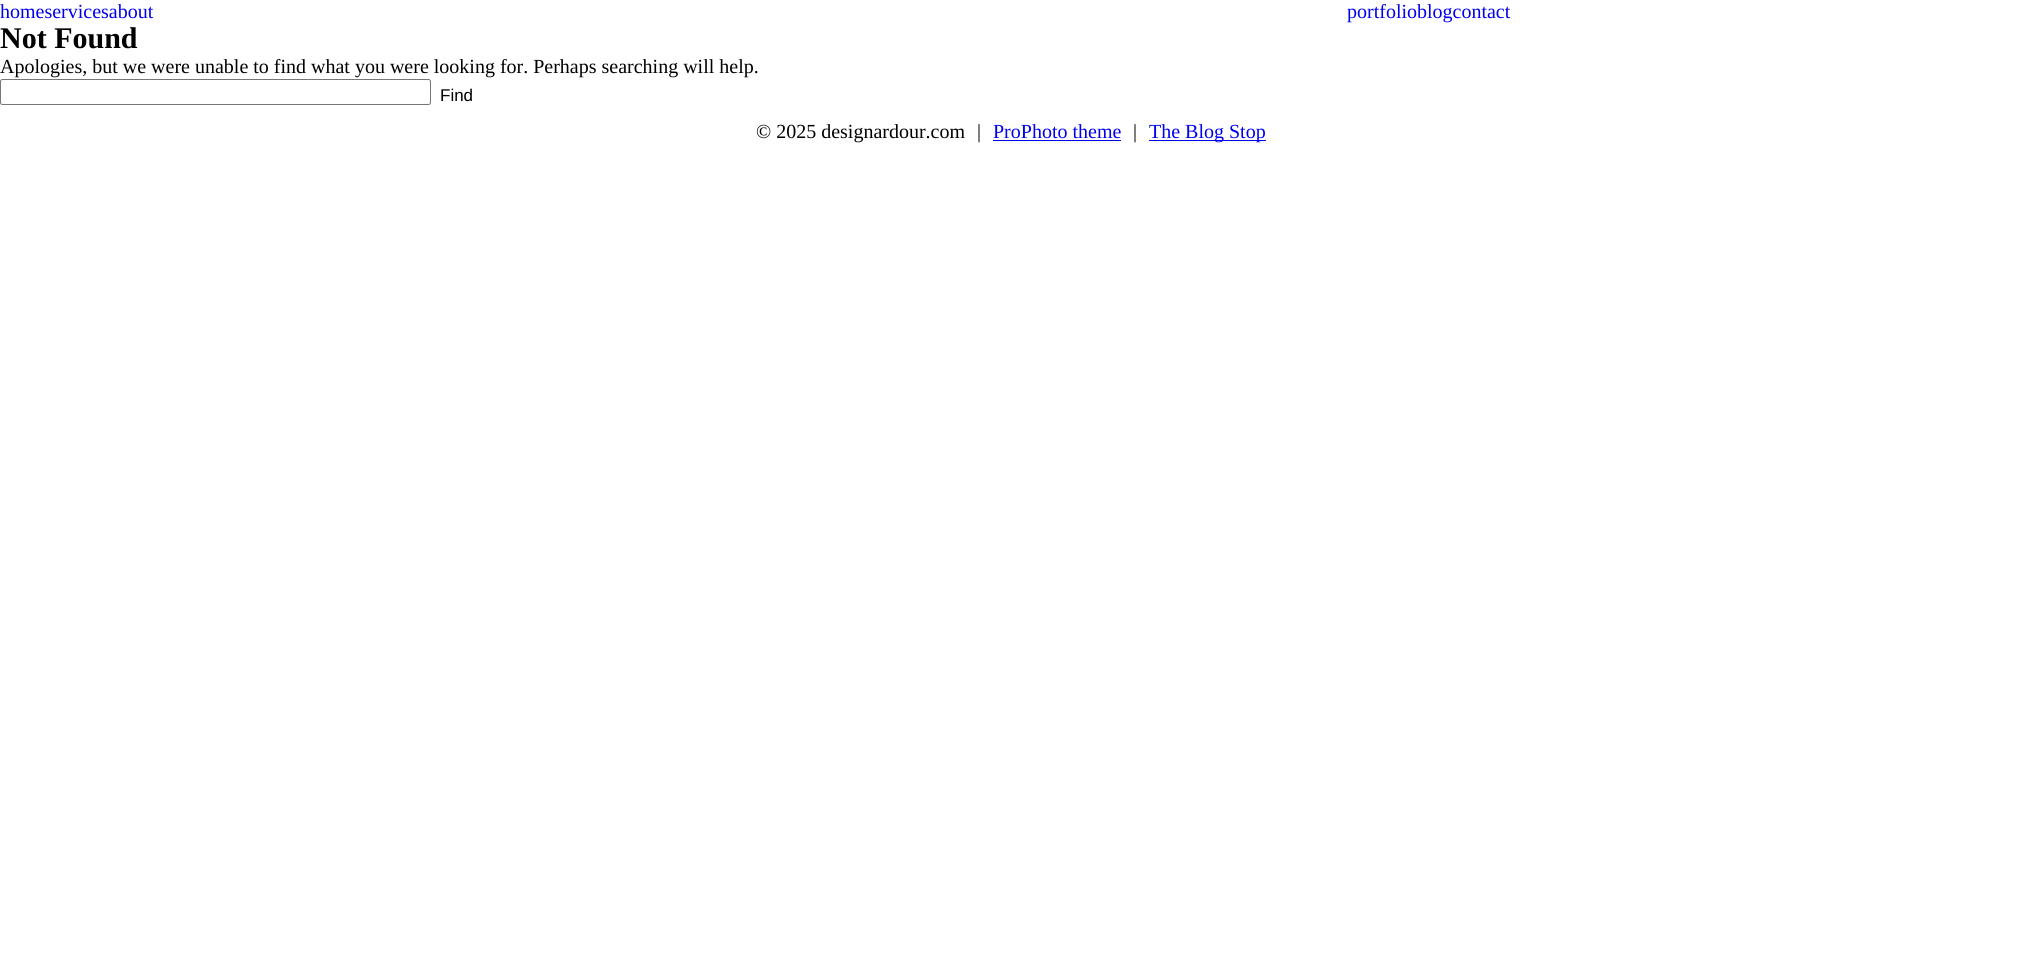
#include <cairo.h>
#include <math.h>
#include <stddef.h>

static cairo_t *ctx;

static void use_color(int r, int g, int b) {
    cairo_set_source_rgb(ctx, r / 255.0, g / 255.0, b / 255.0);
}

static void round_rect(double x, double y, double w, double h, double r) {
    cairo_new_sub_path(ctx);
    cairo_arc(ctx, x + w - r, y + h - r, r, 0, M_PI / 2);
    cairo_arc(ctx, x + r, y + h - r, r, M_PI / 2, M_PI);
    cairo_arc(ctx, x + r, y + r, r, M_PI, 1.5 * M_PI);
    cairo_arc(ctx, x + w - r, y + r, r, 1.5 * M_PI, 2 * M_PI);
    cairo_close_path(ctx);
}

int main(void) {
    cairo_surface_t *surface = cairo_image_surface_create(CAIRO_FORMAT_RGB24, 2021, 961);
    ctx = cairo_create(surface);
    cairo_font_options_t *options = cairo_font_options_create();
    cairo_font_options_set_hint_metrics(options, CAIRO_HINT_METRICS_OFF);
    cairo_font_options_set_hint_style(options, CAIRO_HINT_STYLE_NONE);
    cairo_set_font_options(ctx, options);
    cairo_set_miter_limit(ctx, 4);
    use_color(255, 255, 255);
    cairo_paint(ctx);
    cairo_select_font_face(ctx, "Liberation Serif", CAIRO_FONT_SLANT_NORMAL, CAIRO_FONT_WEIGHT_NORMAL);
    cairo_set_font_size(ctx, 20);
    use_color(0, 0, 238);
    cairo_move_to(ctx, 0, 18);
    cairo_show_text(ctx, "homeservicesabout");
    cairo_move_to(ctx, 1347, 18);
    cairo_show_text(ctx, "portfolioblogcontact");
    cairo_select_font_face(ctx, "Liberation Serif", CAIRO_FONT_SLANT_NORMAL, CAIRO_FONT_WEIGHT_BOLD);
    cairo_set_font_size(ctx, 30);
    use_color(0, 0, 0);
    cairo_move_to(ctx, 0, 48);
    cairo_show_text(ctx, "Not Found");
    cairo_select_font_face(ctx, "Liberation Serif", CAIRO_FONT_SLANT_NORMAL, CAIRO_FONT_WEIGHT_NORMAL);
    cairo_set_font_size(ctx, 20);
    cairo_move_to(ctx, 0, 73);
    cairo_show_text(ctx, "Apologies, but we were unable to find what you were looking for. Perhaps searching will help.");
    round_rect(0.5, 79.5, 430, 25, 2);
    use_color(118, 118, 118);
    cairo_set_line_width(ctx, 1);
    cairo_stroke(ctx);
    cairo_select_font_face(ctx, "Liberation Sans", CAIRO_FONT_SLANT_NORMAL, CAIRO_FONT_WEIGHT_NORMAL);
    cairo_set_font_size(ctx, 17);
    use_color(0, 0, 0);
    cairo_move_to(ctx, 440, 101);
    cairo_show_text(ctx, "Find");
    cairo_select_font_face(ctx, "Liberation Serif", CAIRO_FONT_SLANT_NORMAL, CAIRO_FONT_WEIGHT_NORMAL);
    cairo_set_font_size(ctx, 20);
    cairo_move_to(ctx, 756, 138);
    cairo_show_text(ctx, "© 2025 designardour.com");
    cairo_move_to(ctx, 977, 138);
    cairo_show_text(ctx, "|");
    use_color(0, 0, 238);
    cairo_move_to(ctx, 993, 138);
    cairo_show_text(ctx, "ProPhoto theme");
    cairo_rectangle(ctx, 993, 140, 128, 1);
    cairo_fill(ctx);
    use_color(0, 0, 0);
    cairo_move_to(ctx, 1133, 138);
    cairo_show_text(ctx, "|");
    use_color(0, 0, 238);
    cairo_rectangle(ctx, 1149, 140, 117, 1);
    cairo_fill(ctx);
    cairo_move_to(ctx, 1149, 138);
    cairo_show_text(ctx, "The Blog Stop");
    cairo_surface_write_to_png(surface, "result.png");
    cairo_font_options_destroy(options);
    cairo_destroy(ctx);
    cairo_surface_destroy(surface);
    return 0;
}
